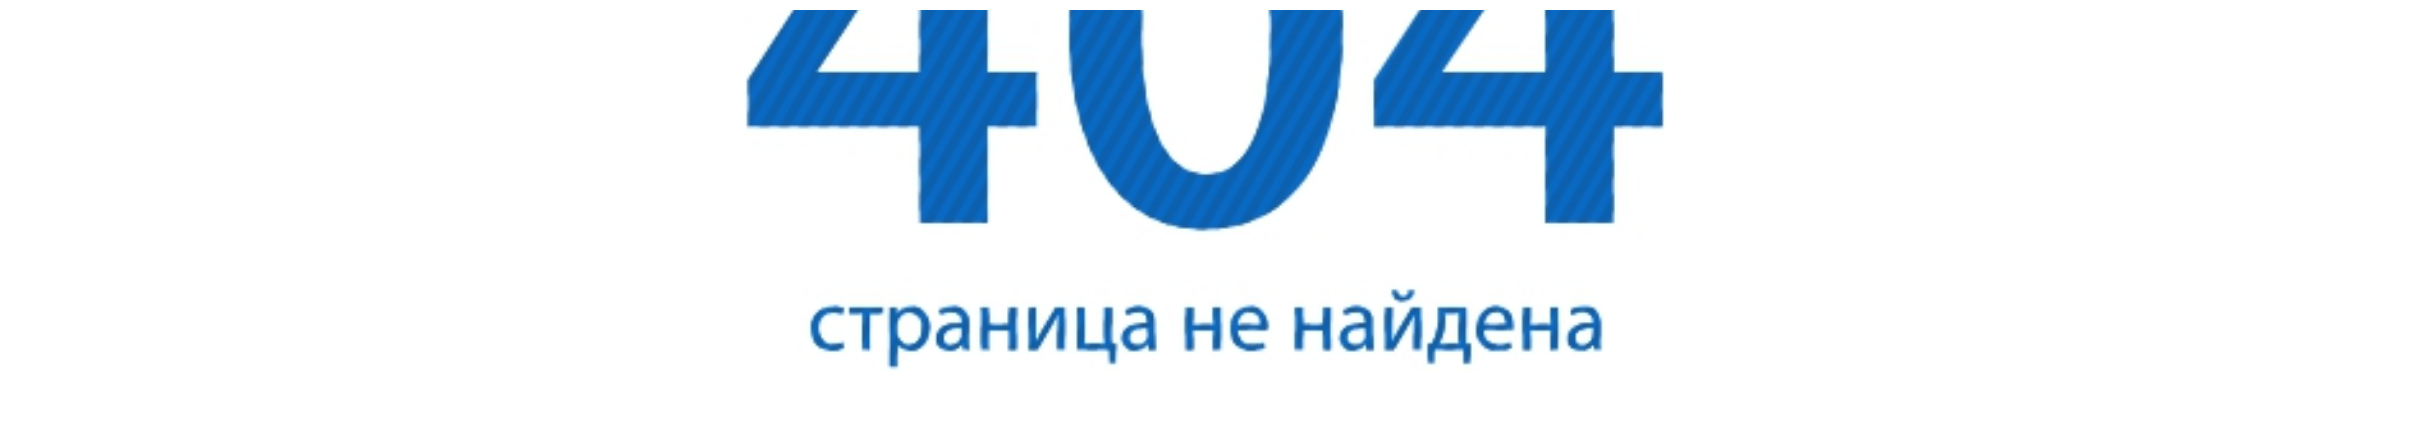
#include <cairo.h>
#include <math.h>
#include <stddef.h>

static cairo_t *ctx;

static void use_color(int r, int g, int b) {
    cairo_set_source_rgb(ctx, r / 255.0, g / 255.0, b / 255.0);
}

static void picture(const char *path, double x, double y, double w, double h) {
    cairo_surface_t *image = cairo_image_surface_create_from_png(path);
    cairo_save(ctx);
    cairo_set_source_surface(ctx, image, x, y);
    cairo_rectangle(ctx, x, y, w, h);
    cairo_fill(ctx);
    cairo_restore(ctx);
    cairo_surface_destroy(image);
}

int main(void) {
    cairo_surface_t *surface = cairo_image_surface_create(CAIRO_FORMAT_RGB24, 2425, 438);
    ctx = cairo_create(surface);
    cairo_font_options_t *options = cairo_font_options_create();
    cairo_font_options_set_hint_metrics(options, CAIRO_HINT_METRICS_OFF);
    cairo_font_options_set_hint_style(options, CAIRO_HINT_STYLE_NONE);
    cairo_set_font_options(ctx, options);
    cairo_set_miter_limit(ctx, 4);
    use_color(255, 255, 255);
    cairo_paint(ctx);
    picture("img1.png", 744, 10, 922, 362);
    cairo_surface_write_to_png(surface, "result.png");
    cairo_font_options_destroy(options);
    cairo_destroy(ctx);
    cairo_surface_destroy(surface);
    return 0;
}
